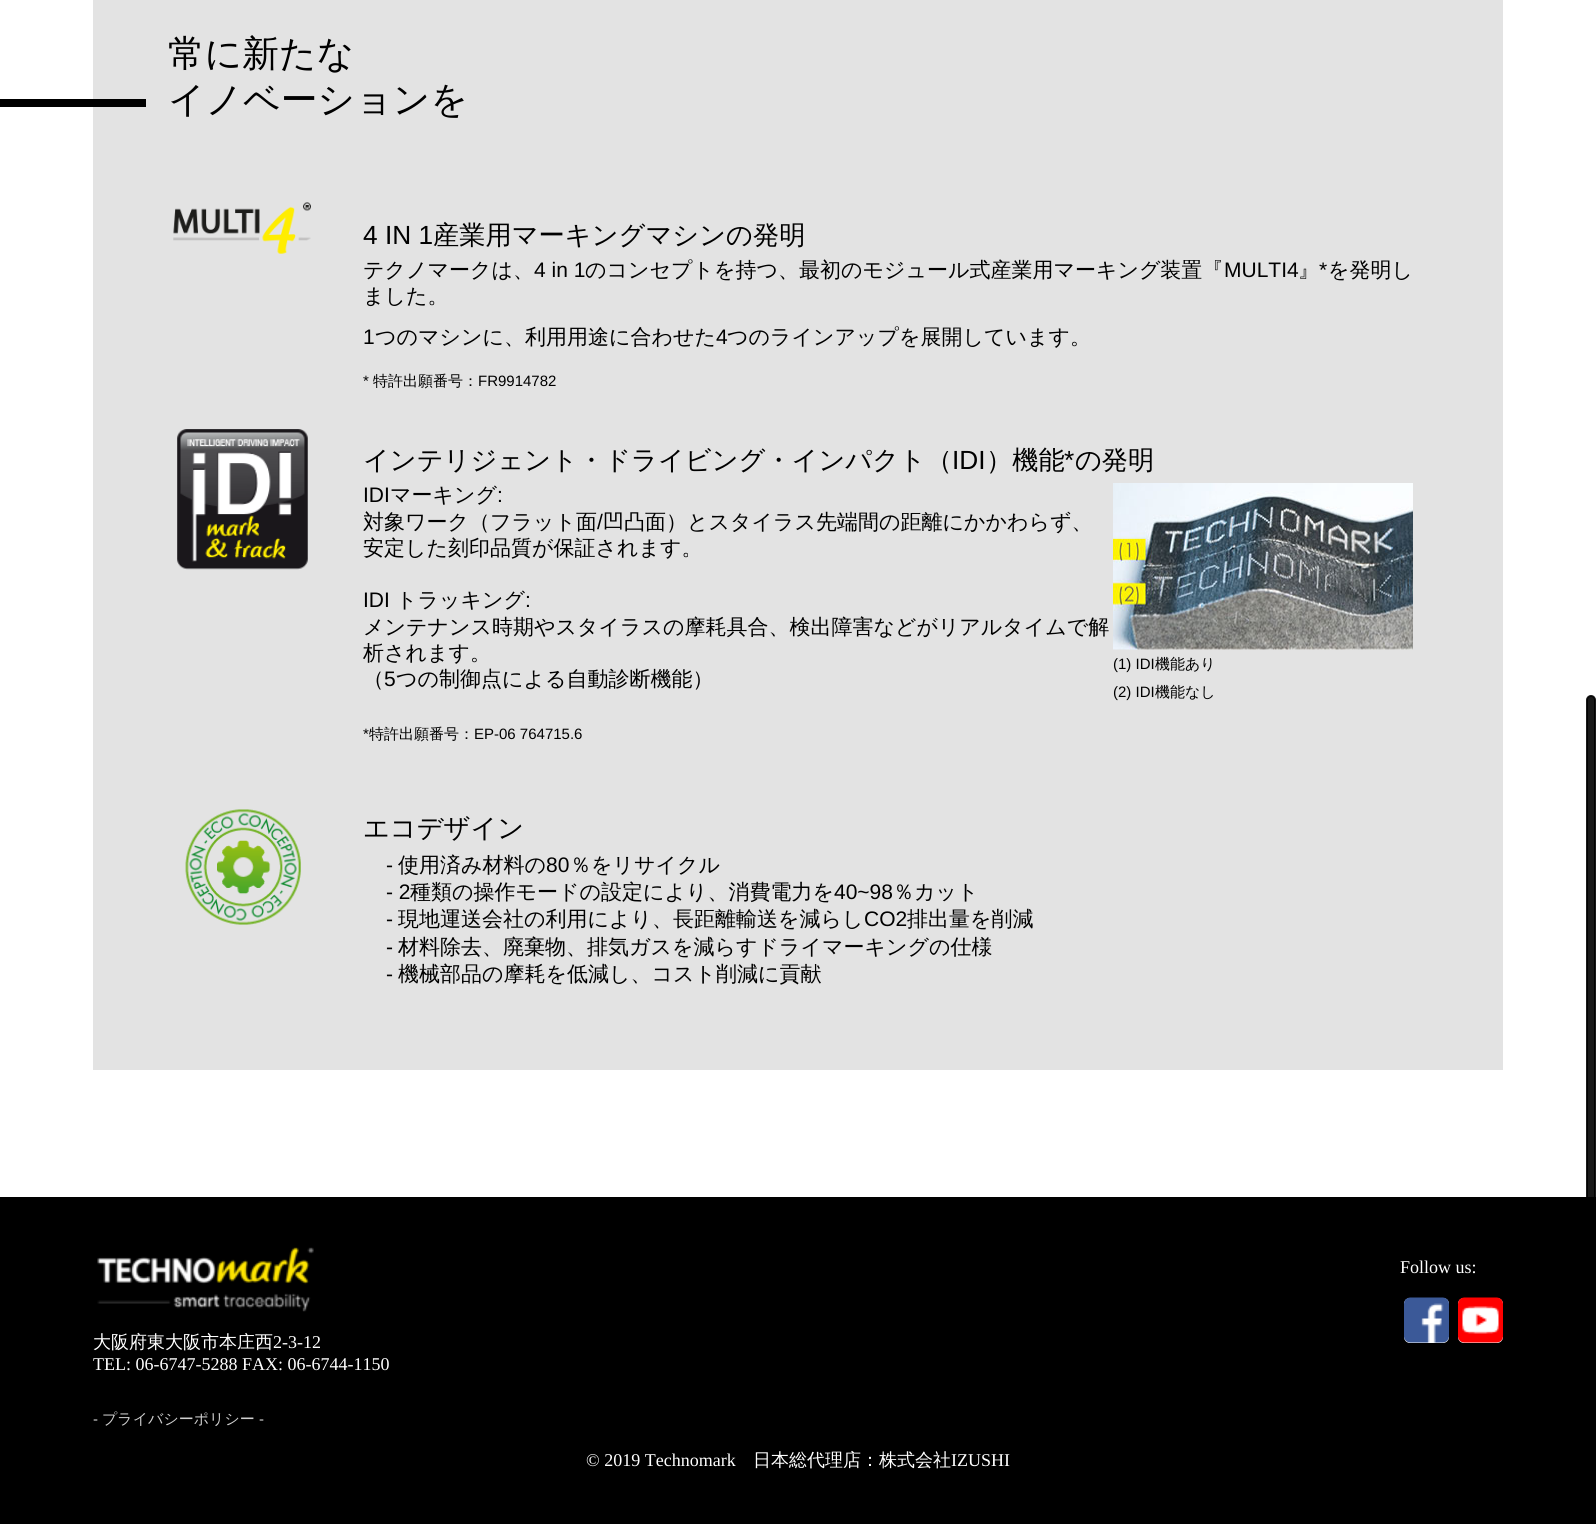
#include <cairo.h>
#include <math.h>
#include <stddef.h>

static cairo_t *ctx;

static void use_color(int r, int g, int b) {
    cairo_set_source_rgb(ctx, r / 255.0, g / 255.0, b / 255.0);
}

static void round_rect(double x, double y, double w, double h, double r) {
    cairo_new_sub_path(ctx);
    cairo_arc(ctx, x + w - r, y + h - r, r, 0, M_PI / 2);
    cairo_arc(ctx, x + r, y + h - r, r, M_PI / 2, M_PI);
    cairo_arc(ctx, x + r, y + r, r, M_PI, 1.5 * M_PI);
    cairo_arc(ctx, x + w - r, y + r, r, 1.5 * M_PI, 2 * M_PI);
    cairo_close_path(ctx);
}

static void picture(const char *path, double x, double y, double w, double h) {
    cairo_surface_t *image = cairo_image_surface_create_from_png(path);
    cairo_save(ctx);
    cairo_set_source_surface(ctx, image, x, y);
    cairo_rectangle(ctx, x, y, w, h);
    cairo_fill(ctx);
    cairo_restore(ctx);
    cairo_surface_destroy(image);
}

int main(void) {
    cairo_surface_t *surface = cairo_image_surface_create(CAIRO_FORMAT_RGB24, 1596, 1524);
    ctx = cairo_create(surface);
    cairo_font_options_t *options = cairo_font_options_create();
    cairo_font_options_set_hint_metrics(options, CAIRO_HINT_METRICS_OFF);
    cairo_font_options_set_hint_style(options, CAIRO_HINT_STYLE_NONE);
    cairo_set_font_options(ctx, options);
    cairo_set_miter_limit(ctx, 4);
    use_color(255, 255, 255);
    cairo_paint(ctx);
    use_color(227, 227, 227);
    cairo_rectangle(ctx, 93, 0, 1410, 1070);
    cairo_fill(ctx);
    use_color(0, 0, 0);
    cairo_rectangle(ctx, 0, 99, 146, 8);
    cairo_fill(ctx);
    cairo_select_font_face(ctx, "WenQuanYi Zen Hei Medium", CAIRO_FONT_SLANT_NORMAL, CAIRO_FONT_WEIGHT_NORMAL);
    cairo_set_font_size(ctx, 36.75);
    cairo_move_to(ctx, 168, 66);
    cairo_show_text(ctx, "常に新たな");
    cairo_move_to(ctx, 168, 112);
    cairo_show_text(ctx, "イノベーションを");
    picture("img1.png", 173, 202, 138, 52);
    cairo_select_font_face(ctx, "Liberation Sans", CAIRO_FONT_SLANT_NORMAL, CAIRO_FONT_WEIGHT_NORMAL);
    cairo_set_font_size(ctx, 26.25);
    cairo_move_to(ctx, 363, 244);
    cairo_show_text(ctx, "4 IN 1");
    cairo_select_font_face(ctx, "WenQuanYi Zen Hei Medium", CAIRO_FONT_SLANT_NORMAL, CAIRO_FONT_WEIGHT_NORMAL);
    cairo_move_to(ctx, 433, 244);
    cairo_show_text(ctx, "産業用マーキングマシンの発明");
    cairo_set_font_size(ctx, 21);
    cairo_move_to(ctx, 363, 277);
    cairo_show_text(ctx, "テクノマークは、");
    cairo_select_font_face(ctx, "Liberation Sans", CAIRO_FONT_SLANT_NORMAL, CAIRO_FONT_WEIGHT_NORMAL);
    cairo_move_to(ctx, 534, 277);
    cairo_show_text(ctx, "4 in 1");
    cairo_select_font_face(ctx, "WenQuanYi Zen Hei Medium", CAIRO_FONT_SLANT_NORMAL, CAIRO_FONT_WEIGHT_NORMAL);
    cairo_move_to(ctx, 585, 277);
    cairo_show_text(ctx, "のコンセプトを持つ、最初のモジュール式産業用マーキング装置『");
    cairo_select_font_face(ctx, "Liberation Sans", CAIRO_FONT_SLANT_NORMAL, CAIRO_FONT_WEIGHT_NORMAL);
    cairo_move_to(ctx, 1224, 277);
    cairo_show_text(ctx, "MULTI4");
    cairo_move_to(ctx, 1319, 277);
    cairo_show_text(ctx, "*");
    cairo_select_font_face(ctx, "WenQuanYi Zen Hei Medium", CAIRO_FONT_SLANT_NORMAL, CAIRO_FONT_WEIGHT_NORMAL);
    cairo_move_to(ctx, 1328, 277);
    cairo_show_text(ctx, "を発明し");
    cairo_move_to(ctx, 1298, 277);
    cairo_show_text(ctx, "』");
    cairo_move_to(ctx, 363, 303);
    cairo_show_text(ctx, "ました。");
    cairo_select_font_face(ctx, "Liberation Sans", CAIRO_FONT_SLANT_NORMAL, CAIRO_FONT_WEIGHT_NORMAL);
    cairo_move_to(ctx, 363, 344);
    cairo_show_text(ctx, "1");
    cairo_select_font_face(ctx, "WenQuanYi Zen Hei Medium", CAIRO_FONT_SLANT_NORMAL, CAIRO_FONT_WEIGHT_NORMAL);
    cairo_move_to(ctx, 375, 344);
    cairo_show_text(ctx, "つのマシンに、利用用途に合わせた");
    cairo_select_font_face(ctx, "Liberation Sans", CAIRO_FONT_SLANT_NORMAL, CAIRO_FONT_WEIGHT_NORMAL);
    cairo_move_to(ctx, 716, 344);
    cairo_show_text(ctx, "4");
    cairo_select_font_face(ctx, "WenQuanYi Zen Hei Medium", CAIRO_FONT_SLANT_NORMAL, CAIRO_FONT_WEIGHT_NORMAL);
    cairo_move_to(ctx, 727, 344);
    cairo_show_text(ctx, "つのラインアップを展開しています。");
    cairo_select_font_face(ctx, "Liberation Sans", CAIRO_FONT_SLANT_NORMAL, CAIRO_FONT_WEIGHT_NORMAL);
    cairo_set_font_size(ctx, 15);
    cairo_move_to(ctx, 363, 386);
    cairo_show_text(ctx, "*");
    cairo_select_font_face(ctx, "WenQuanYi Zen Hei Medium", CAIRO_FONT_SLANT_NORMAL, CAIRO_FONT_WEIGHT_NORMAL);
    cairo_move_to(ctx, 373, 386);
    cairo_show_text(ctx, "特許出願番号：");
    cairo_select_font_face(ctx, "Liberation Sans", CAIRO_FONT_SLANT_NORMAL, CAIRO_FONT_WEIGHT_NORMAL);
    cairo_move_to(ctx, 478, 386);
    cairo_show_text(ctx, "FR9914782");
    picture("img2.png", 177, 429, 131, 141);
    cairo_select_font_face(ctx, "WenQuanYi Zen Hei Medium", CAIRO_FONT_SLANT_NORMAL, CAIRO_FONT_WEIGHT_NORMAL);
    cairo_set_font_size(ctx, 26.25);
    cairo_move_to(ctx, 363, 469);
    cairo_show_text(ctx, "インテリジェント・ドライビング・インパクト（");
    cairo_select_font_face(ctx, "Liberation Sans", CAIRO_FONT_SLANT_NORMAL, CAIRO_FONT_WEIGHT_NORMAL);
    cairo_move_to(ctx, 952, 469);
    cairo_show_text(ctx, "IDI");
    cairo_select_font_face(ctx, "WenQuanYi Zen Hei Medium", CAIRO_FONT_SLANT_NORMAL, CAIRO_FONT_WEIGHT_NORMAL);
    cairo_move_to(ctx, 986, 469);
    cairo_show_text(ctx, "）機能");
    cairo_select_font_face(ctx, "Liberation Sans", CAIRO_FONT_SLANT_NORMAL, CAIRO_FONT_WEIGHT_NORMAL);
    cairo_move_to(ctx, 1064, 469);
    cairo_show_text(ctx, "*");
    cairo_select_font_face(ctx, "WenQuanYi Zen Hei Medium", CAIRO_FONT_SLANT_NORMAL, CAIRO_FONT_WEIGHT_NORMAL);
    cairo_move_to(ctx, 1075, 469);
    cairo_show_text(ctx, "の発明");
    cairo_select_font_face(ctx, "Liberation Sans", CAIRO_FONT_SLANT_NORMAL, CAIRO_FONT_WEIGHT_NORMAL);
    cairo_set_font_size(ctx, 21);
    cairo_move_to(ctx, 363, 502);
    cairo_show_text(ctx, "IDI");
    cairo_select_font_face(ctx, "WenQuanYi Zen Hei Medium", CAIRO_FONT_SLANT_NORMAL, CAIRO_FONT_WEIGHT_NORMAL);
    cairo_move_to(ctx, 390, 502);
    cairo_show_text(ctx, "マーキング");
    cairo_select_font_face(ctx, "Liberation Sans", CAIRO_FONT_SLANT_NORMAL, CAIRO_FONT_WEIGHT_NORMAL);
    cairo_move_to(ctx, 497, 502);
    cairo_show_text(ctx, ":");
    cairo_select_font_face(ctx, "WenQuanYi Zen Hei Medium", CAIRO_FONT_SLANT_NORMAL, CAIRO_FONT_WEIGHT_NORMAL);
    cairo_move_to(ctx, 363, 529);
    cairo_show_text(ctx, "対象ワーク（フラット面");
    cairo_select_font_face(ctx, "Liberation Sans", CAIRO_FONT_SLANT_NORMAL, CAIRO_FONT_WEIGHT_NORMAL);
    cairo_move_to(ctx, 597, 529);
    cairo_show_text(ctx, "/");
    cairo_select_font_face(ctx, "WenQuanYi Zen Hei Medium", CAIRO_FONT_SLANT_NORMAL, CAIRO_FONT_WEIGHT_NORMAL);
    cairo_move_to(ctx, 603, 529);
    cairo_show_text(ctx, "凹凸面）とスタイラス先端間の距離にかかわらず、");
    cairo_move_to(ctx, 363, 555);
    cairo_show_text(ctx, "安定した刻印品質が保証されます。");
    cairo_select_font_face(ctx, "Liberation Sans", CAIRO_FONT_SLANT_NORMAL, CAIRO_FONT_WEIGHT_NORMAL);
    cairo_move_to(ctx, 363, 607);
    cairo_show_text(ctx, "IDI");
    cairo_select_font_face(ctx, "WenQuanYi Zen Hei Medium", CAIRO_FONT_SLANT_NORMAL, CAIRO_FONT_WEIGHT_NORMAL);
    cairo_move_to(ctx, 396, 607);
    cairo_show_text(ctx, "トラッキング");
    cairo_select_font_face(ctx, "Liberation Sans", CAIRO_FONT_SLANT_NORMAL, CAIRO_FONT_WEIGHT_NORMAL);
    cairo_move_to(ctx, 525, 607);
    cairo_show_text(ctx, ":");
    cairo_select_font_face(ctx, "WenQuanYi Zen Hei Medium", CAIRO_FONT_SLANT_NORMAL, CAIRO_FONT_WEIGHT_NORMAL);
    cairo_move_to(ctx, 363, 634);
    cairo_show_text(ctx, "メンテナンス時期やスタイラスの摩耗具合、検出障害などがリアルタイムで解");
    cairo_move_to(ctx, 363, 660);
    cairo_show_text(ctx, "析されます。");
    cairo_move_to(ctx, 363, 686);
    cairo_show_text(ctx, "（");
    cairo_select_font_face(ctx, "Liberation Sans", CAIRO_FONT_SLANT_NORMAL, CAIRO_FONT_WEIGHT_NORMAL);
    cairo_move_to(ctx, 384, 686);
    cairo_show_text(ctx, "5");
    cairo_select_font_face(ctx, "WenQuanYi Zen Hei Medium", CAIRO_FONT_SLANT_NORMAL, CAIRO_FONT_WEIGHT_NORMAL);
    cairo_move_to(ctx, 396, 686);
    cairo_show_text(ctx, "つの制御点による自動診断機能）");
    picture("img3.png", 1113, 483, 300, 167);
    cairo_select_font_face(ctx, "Liberation Sans", CAIRO_FONT_SLANT_NORMAL, CAIRO_FONT_WEIGHT_NORMAL);
    cairo_set_font_size(ctx, 15);
    cairo_move_to(ctx, 1113, 669);
    cairo_show_text(ctx, "(1) IDI");
    cairo_select_font_face(ctx, "WenQuanYi Zen Hei Medium", CAIRO_FONT_SLANT_NORMAL, CAIRO_FONT_WEIGHT_NORMAL);
    cairo_move_to(ctx, 1155, 669);
    cairo_show_text(ctx, "機能あり");
    cairo_select_font_face(ctx, "Liberation Sans", CAIRO_FONT_SLANT_NORMAL, CAIRO_FONT_WEIGHT_NORMAL);
    cairo_move_to(ctx, 1113, 697);
    cairo_show_text(ctx, "(2) IDI");
    cairo_select_font_face(ctx, "WenQuanYi Zen Hei Medium", CAIRO_FONT_SLANT_NORMAL, CAIRO_FONT_WEIGHT_NORMAL);
    cairo_move_to(ctx, 1155, 697);
    cairo_show_text(ctx, "機能なし");
    cairo_select_font_face(ctx, "Liberation Sans", CAIRO_FONT_SLANT_NORMAL, CAIRO_FONT_WEIGHT_NORMAL);
    cairo_move_to(ctx, 363, 739);
    cairo_show_text(ctx, "*");
    cairo_select_font_face(ctx, "WenQuanYi Zen Hei Medium", CAIRO_FONT_SLANT_NORMAL, CAIRO_FONT_WEIGHT_NORMAL);
    cairo_move_to(ctx, 369, 739);
    cairo_show_text(ctx, "特許出願番号：");
    cairo_select_font_face(ctx, "Liberation Sans", CAIRO_FONT_SLANT_NORMAL, CAIRO_FONT_WEIGHT_NORMAL);
    cairo_move_to(ctx, 474, 739);
    cairo_show_text(ctx, "EP-06 764715.6");
    picture("img4.png", 185, 809, 116, 116);
    cairo_select_font_face(ctx, "WenQuanYi Zen Hei Medium", CAIRO_FONT_SLANT_NORMAL, CAIRO_FONT_WEIGHT_NORMAL);
    cairo_set_font_size(ctx, 26.25);
    cairo_move_to(ctx, 363, 837);
    cairo_show_text(ctx, "エコデザイン");
    cairo_select_font_face(ctx, "Liberation Sans", CAIRO_FONT_SLANT_NORMAL, CAIRO_FONT_WEIGHT_NORMAL);
    cairo_set_font_size(ctx, 21);
    cairo_move_to(ctx, 386, 872);
    cairo_show_text(ctx, "-");
    cairo_select_font_face(ctx, "WenQuanYi Zen Hei Medium", CAIRO_FONT_SLANT_NORMAL, CAIRO_FONT_WEIGHT_NORMAL);
    cairo_move_to(ctx, 398, 872);
    cairo_show_text(ctx, "使用済み材料の");
    cairo_select_font_face(ctx, "Liberation Sans", CAIRO_FONT_SLANT_NORMAL, CAIRO_FONT_WEIGHT_NORMAL);
    cairo_move_to(ctx, 546, 872);
    cairo_show_text(ctx, "80");
    cairo_select_font_face(ctx, "WenQuanYi Zen Hei Medium", CAIRO_FONT_SLANT_NORMAL, CAIRO_FONT_WEIGHT_NORMAL);
    cairo_move_to(ctx, 570, 872);
    cairo_show_text(ctx, "％をリサイクル");
    cairo_select_font_face(ctx, "Liberation Sans", CAIRO_FONT_SLANT_NORMAL, CAIRO_FONT_WEIGHT_NORMAL);
    cairo_move_to(ctx, 386, 899);
    cairo_show_text(ctx, "- 2");
    cairo_select_font_face(ctx, "WenQuanYi Zen Hei Medium", CAIRO_FONT_SLANT_NORMAL, CAIRO_FONT_WEIGHT_NORMAL);
    cairo_move_to(ctx, 410, 899);
    cairo_show_text(ctx, "種類の操作モードの設定により、消費電力を");
    cairo_select_font_face(ctx, "Liberation Sans", CAIRO_FONT_SLANT_NORMAL, CAIRO_FONT_WEIGHT_NORMAL);
    cairo_move_to(ctx, 834, 899);
    cairo_show_text(ctx, "40~98");
    cairo_select_font_face(ctx, "WenQuanYi Zen Hei Medium", CAIRO_FONT_SLANT_NORMAL, CAIRO_FONT_WEIGHT_NORMAL);
    cairo_move_to(ctx, 893, 899);
    cairo_show_text(ctx, "％カット");
    cairo_select_font_face(ctx, "Liberation Sans", CAIRO_FONT_SLANT_NORMAL, CAIRO_FONT_WEIGHT_NORMAL);
    cairo_move_to(ctx, 386, 926);
    cairo_show_text(ctx, "-");
    cairo_select_font_face(ctx, "WenQuanYi Zen Hei Medium", CAIRO_FONT_SLANT_NORMAL, CAIRO_FONT_WEIGHT_NORMAL);
    cairo_move_to(ctx, 398, 926);
    cairo_show_text(ctx, "現地運送会社の利用により、長距離輸送を減らし");
    cairo_select_font_face(ctx, "Liberation Sans", CAIRO_FONT_SLANT_NORMAL, CAIRO_FONT_WEIGHT_NORMAL);
    cairo_move_to(ctx, 864, 926);
    cairo_show_text(ctx, "CO2");
    cairo_select_font_face(ctx, "WenQuanYi Zen Hei Medium", CAIRO_FONT_SLANT_NORMAL, CAIRO_FONT_WEIGHT_NORMAL);
    cairo_move_to(ctx, 907, 926);
    cairo_show_text(ctx, "排出量を削減");
    cairo_select_font_face(ctx, "Liberation Sans", CAIRO_FONT_SLANT_NORMAL, CAIRO_FONT_WEIGHT_NORMAL);
    cairo_move_to(ctx, 386, 954);
    cairo_show_text(ctx, "-");
    cairo_select_font_face(ctx, "WenQuanYi Zen Hei Medium", CAIRO_FONT_SLANT_NORMAL, CAIRO_FONT_WEIGHT_NORMAL);
    cairo_move_to(ctx, 398, 954);
    cairo_show_text(ctx, "材料除去、廃棄物、排気ガスを減らすドライマーキングの仕様");
    cairo_select_font_face(ctx, "Liberation Sans", CAIRO_FONT_SLANT_NORMAL, CAIRO_FONT_WEIGHT_NORMAL);
    cairo_move_to(ctx, 386, 981);
    cairo_show_text(ctx, "-");
    cairo_select_font_face(ctx, "WenQuanYi Zen Hei Medium", CAIRO_FONT_SLANT_NORMAL, CAIRO_FONT_WEIGHT_NORMAL);
    cairo_move_to(ctx, 398, 981);
    cairo_show_text(ctx, "機械部品の摩耗を低減し、コスト削減に貢献");
    cairo_rectangle(ctx, 0, 1197, 1596, 327);
    cairo_fill(ctx);
    picture("img5.png", 97, 1247, 217, 65);
    cairo_select_font_face(ctx, "Liberation Serif", CAIRO_FONT_SLANT_NORMAL, CAIRO_FONT_WEIGHT_NORMAL);
    cairo_set_font_size(ctx, 18);
    use_color(255, 255, 255);
    cairo_move_to(ctx, 1400, 1273);
    cairo_show_text(ctx, "Follow us:");
    round_rect(1404, 1298, 45, 45, 6);
    cairo_fill(ctx);
    picture("img6.png", 1403, 1297, 46, 46);
    round_rect(1458, 1298, 45, 45, 6);
    cairo_fill(ctx);
    picture("img7.png", 1457, 1297, 46, 46);
    cairo_select_font_face(ctx, "WenQuanYi Zen Hei Medium", CAIRO_FONT_SLANT_NORMAL, CAIRO_FONT_WEIGHT_NORMAL);
    cairo_move_to(ctx, 93, 1348);
    cairo_show_text(ctx, "大阪府東大阪市本庄西");
    cairo_select_font_face(ctx, "Liberation Serif", CAIRO_FONT_SLANT_NORMAL, CAIRO_FONT_WEIGHT_NORMAL);
    cairo_move_to(ctx, 273, 1348);
    cairo_show_text(ctx, "2-3-12");
    cairo_move_to(ctx, 93, 1370);
    cairo_show_text(ctx, "TEL: 06-6747-5288 FAX: 06-6744-1150");
    cairo_select_font_face(ctx, "Liberation Sans", CAIRO_FONT_SLANT_NORMAL, CAIRO_FONT_WEIGHT_NORMAL);
    cairo_set_font_size(ctx, 15);
    use_color(207, 207, 207);
    cairo_move_to(ctx, 93, 1424);
    cairo_show_text(ctx, "-");
    cairo_select_font_face(ctx, "WenQuanYi Zen Hei Medium", CAIRO_FONT_SLANT_NORMAL, CAIRO_FONT_WEIGHT_NORMAL);
    cairo_move_to(ctx, 102, 1424);
    cairo_show_text(ctx, "プライバシーポリシー");
    cairo_select_font_face(ctx, "Liberation Sans", CAIRO_FONT_SLANT_NORMAL, CAIRO_FONT_WEIGHT_NORMAL);
    cairo_move_to(ctx, 259, 1424);
    cairo_show_text(ctx, "-");
    cairo_select_font_face(ctx, "Liberation Serif", CAIRO_FONT_SLANT_NORMAL, CAIRO_FONT_WEIGHT_NORMAL);
    cairo_set_font_size(ctx, 18);
    use_color(255, 255, 255);
    cairo_move_to(ctx, 586, 1466);
    cairo_show_text(ctx, "© 2019 Technomark");
    cairo_select_font_face(ctx, "WenQuanYi Zen Hei Medium", CAIRO_FONT_SLANT_NORMAL, CAIRO_FONT_WEIGHT_NORMAL);
    cairo_move_to(ctx, 753, 1466);
    cairo_show_text(ctx, "日本総代理店：株式会社");
    cairo_select_font_face(ctx, "Liberation Serif", CAIRO_FONT_SLANT_NORMAL, CAIRO_FONT_WEIGHT_NORMAL);
    cairo_move_to(ctx, 951, 1466);
    cairo_show_text(ctx, "IZUSHI");
    cairo_set_source_rgba(ctx, 0, 0, 0, 0.9);
    round_rect(1587, 696, 8, 819, 4);
    cairo_fill(ctx);
    round_rect(1587, 696, 8, 820, 4);
    cairo_stroke(ctx);
    cairo_surface_write_to_png(surface, "result.png");
    cairo_font_options_destroy(options);
    cairo_destroy(ctx);
    cairo_surface_destroy(surface);
    return 0;
}
